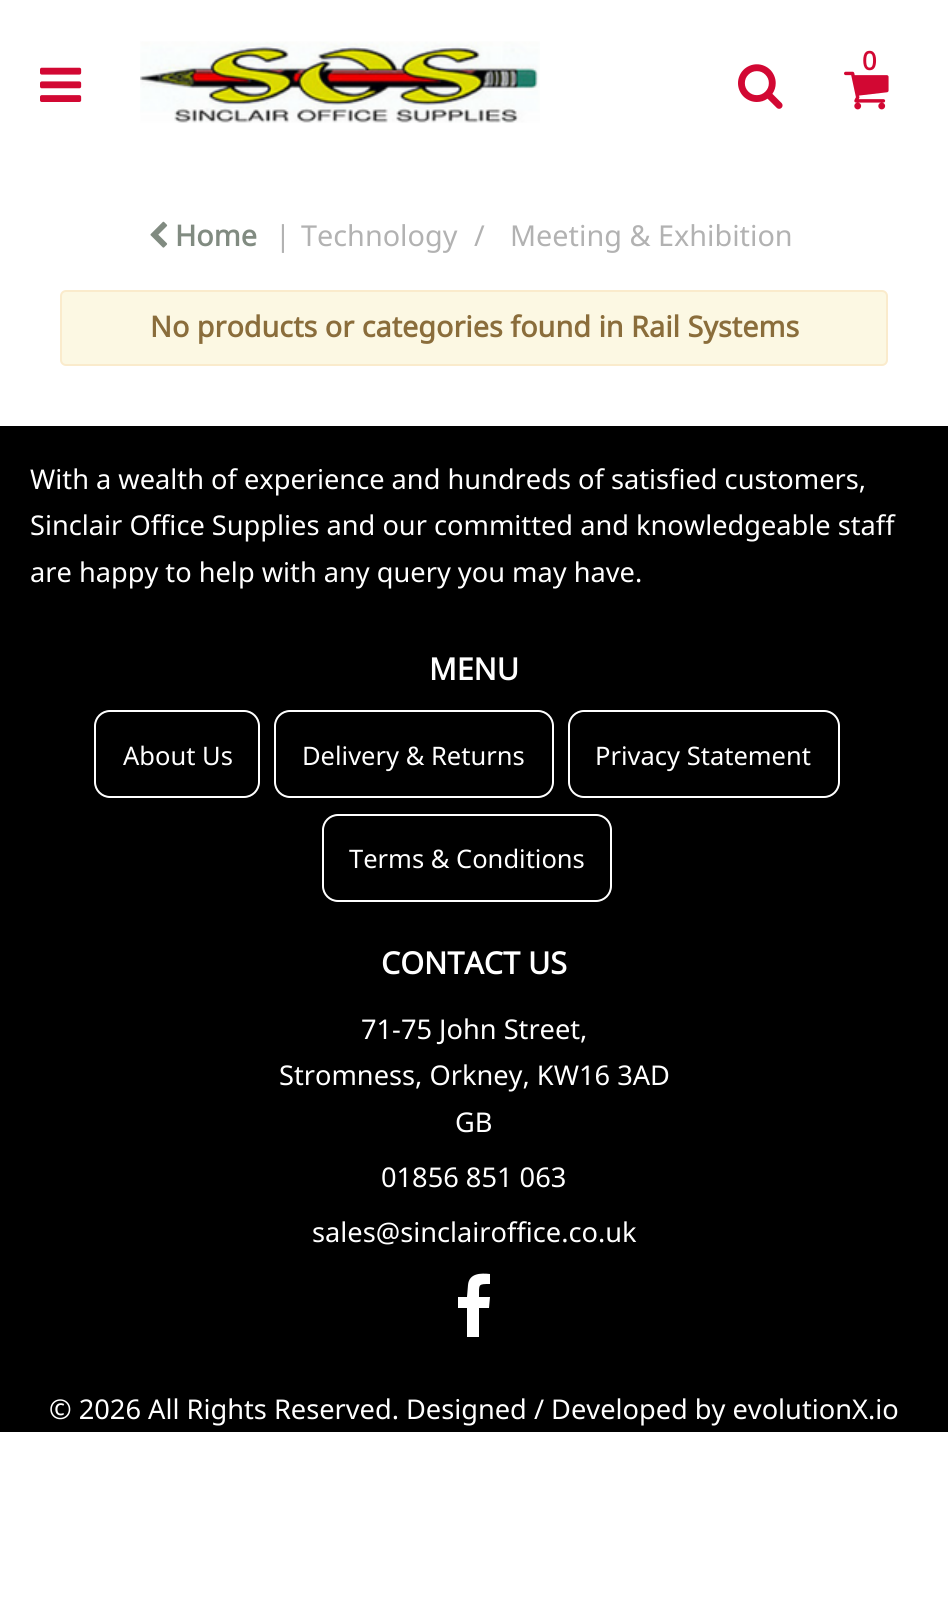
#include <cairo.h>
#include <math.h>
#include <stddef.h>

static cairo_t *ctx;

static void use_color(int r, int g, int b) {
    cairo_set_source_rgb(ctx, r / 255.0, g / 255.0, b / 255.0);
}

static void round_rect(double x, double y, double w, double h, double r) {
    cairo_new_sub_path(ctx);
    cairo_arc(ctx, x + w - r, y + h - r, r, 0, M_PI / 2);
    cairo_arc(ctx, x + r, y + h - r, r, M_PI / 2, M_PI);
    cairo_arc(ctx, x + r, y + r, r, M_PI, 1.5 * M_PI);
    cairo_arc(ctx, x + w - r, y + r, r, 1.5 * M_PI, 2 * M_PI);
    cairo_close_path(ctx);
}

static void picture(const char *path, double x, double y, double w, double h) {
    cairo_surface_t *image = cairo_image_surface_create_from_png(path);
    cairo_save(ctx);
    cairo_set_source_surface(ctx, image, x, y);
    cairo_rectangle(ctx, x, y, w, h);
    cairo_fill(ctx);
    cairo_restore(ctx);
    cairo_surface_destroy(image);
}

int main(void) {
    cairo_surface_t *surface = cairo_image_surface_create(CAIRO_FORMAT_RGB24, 948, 1610);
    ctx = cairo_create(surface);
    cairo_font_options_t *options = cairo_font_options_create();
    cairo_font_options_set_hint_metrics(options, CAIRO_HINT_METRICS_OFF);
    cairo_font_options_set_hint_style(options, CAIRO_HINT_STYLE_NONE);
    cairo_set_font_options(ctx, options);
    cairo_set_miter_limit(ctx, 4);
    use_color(255, 255, 255);
    cairo_paint(ctx);
    picture("img1.png", 140, 41, 400, 82);
    cairo_select_font_face(ctx, "Noto Sans", CAIRO_FONT_SLANT_NORMAL, CAIRO_FONT_WEIGHT_BOLD);
    cairo_set_font_size(ctx, 25.5);
    use_color(210, 8, 51);
    cairo_move_to(ctx, 862, 70);
    cairo_show_text(ctx, "0");
    picture("img2.png", 844, 71, 45, 39);
    picture("img3.png", 738, 64, 45, 45);
    picture("img4.png", 40, 67, 42, 35);
    picture("img5.png", 150, 221, 18, 27);
    cairo_set_font_size(ctx, 28.8);
    use_color(129, 139, 129);
    cairo_move_to(ctx, 175, 246);
    cairo_show_text(ctx, "Home");
    cairo_select_font_face(ctx, "Noto Sans", CAIRO_FONT_SLANT_NORMAL, CAIRO_FONT_WEIGHT_NORMAL);
    use_color(178, 178, 178);
    cairo_move_to(ctx, 275, 246);
    cairo_show_text(ctx, "|");
    cairo_move_to(ctx, 301, 246);
    cairo_show_text(ctx, "Technology");
    cairo_move_to(ctx, 474, 246);
    cairo_show_text(ctx, "/");
    cairo_move_to(ctx, 510, 246);
    cairo_show_text(ctx, "Meeting & Exhibition");
    use_color(252, 248, 227);
    round_rect(61, 291, 826, 74, 5);
    cairo_fill_preserve(ctx);
    use_color(250, 235, 204);
    cairo_stroke(ctx);
    cairo_select_font_face(ctx, "Noto Sans", CAIRO_FONT_SLANT_NORMAL, CAIRO_FONT_WEIGHT_BOLD);
    use_color(138, 109, 59);
    cairo_move_to(ctx, 150, 337);
    cairo_show_text(ctx, "No products or categories found in Rail Systems");
    use_color(0, 0, 0);
    cairo_rectangle(ctx, 0, 426, 948, 1006);
    cairo_fill(ctx);
    cairo_select_font_face(ctx, "Noto Sans", CAIRO_FONT_SLANT_NORMAL, CAIRO_FONT_WEIGHT_NORMAL);
    cairo_set_font_size(ctx, 27.2);
    use_color(255, 255, 255);
    cairo_move_to(ctx, 30, 489);
    cairo_show_text(ctx, "With a wealth of experience and hundreds of satisfied customers,");
    cairo_move_to(ctx, 30, 535);
    cairo_show_text(ctx, "Sinclair Office Supplies and our committed and knowledgeable staff");
    cairo_move_to(ctx, 30, 582);
    cairo_show_text(ctx, "are happy to help with any query you may have.");
    cairo_select_font_face(ctx, "Noto Sans", CAIRO_FONT_SLANT_NORMAL, CAIRO_FONT_WEIGHT_BOLD);
    cairo_set_font_size(ctx, 30.5);
    cairo_move_to(ctx, 429, 680);
    cairo_show_text(ctx, "MENU");
    round_rect(95, 711, 164, 86, 15);
    cairo_stroke(ctx);
    cairo_select_font_face(ctx, "Noto Sans", CAIRO_FONT_SLANT_NORMAL, CAIRO_FONT_WEIGHT_NORMAL);
    cairo_set_font_size(ctx, 25.5);
    cairo_move_to(ctx, 123, 765);
    cairo_show_text(ctx, "About Us");
    round_rect(275, 711, 278, 86, 15);
    cairo_stroke(ctx);
    cairo_move_to(ctx, 302, 765);
    cairo_show_text(ctx, "Delivery & Returns");
    round_rect(569, 711, 270, 86, 15);
    cairo_stroke(ctx);
    cairo_move_to(ctx, 595, 765);
    cairo_show_text(ctx, "Privacy Statement");
    round_rect(323, 815, 288, 86, 15);
    cairo_stroke(ctx);
    cairo_move_to(ctx, 349, 868);
    cairo_show_text(ctx, "Terms & Conditions");
    cairo_select_font_face(ctx, "Noto Sans", CAIRO_FONT_SLANT_NORMAL, CAIRO_FONT_WEIGHT_BOLD);
    cairo_set_font_size(ctx, 30.5);
    cairo_move_to(ctx, 381, 974);
    cairo_show_text(ctx, "CONTACT US");
    cairo_select_font_face(ctx, "Noto Sans", CAIRO_FONT_SLANT_NORMAL, CAIRO_FONT_WEIGHT_NORMAL);
    cairo_set_font_size(ctx, 27.2);
    cairo_move_to(ctx, 361, 1039);
    cairo_show_text(ctx, "71-75 John Street,");
    cairo_move_to(ctx, 279, 1085);
    cairo_show_text(ctx, "Stromness, Orkney, KW16 3AD");
    cairo_move_to(ctx, 455, 1132);
    cairo_show_text(ctx, "GB");
    cairo_move_to(ctx, 381, 1187);
    cairo_show_text(ctx, "01856 851 063");
    cairo_move_to(ctx, 312, 1242);
    cairo_show_text(ctx, "sales@sinclairoffice.co.uk");
    cairo_new_path(ctx);
    cairo_move_to(ctx, 490, 1274);
    cairo_line_to(ctx, 490, 1284);
    cairo_curve_to(ctx, 478, 1284, 479, 1284, 479, 1297);
    cairo_line_to(ctx, 490, 1297);
    cairo_line_to(ctx, 489, 1308);
    cairo_line_to(ctx, 479, 1308);
    cairo_line_to(ctx, 479, 1337);
    cairo_line_to(ctx, 467, 1337);
    cairo_line_to(ctx, 467, 1308);
    cairo_line_to(ctx, 458, 1308);
    cairo_line_to(ctx, 458, 1297);
    cairo_line_to(ctx, 467, 1297);
    cairo_line_to(ctx, 468, 1285);
    cairo_curve_to(ctx, 469, 1273, 481, 1273, 490, 1274);
    cairo_close_path(ctx);
    cairo_fill(ctx);
    cairo_move_to(ctx, 49, 1419);
    cairo_show_text(ctx, "© 2026 All Rights Reserved. Designed / Developed by evolutionX.io");
    cairo_surface_write_to_png(surface, "result.png");
    cairo_font_options_destroy(options);
    cairo_destroy(ctx);
    cairo_surface_destroy(surface);
    return 0;
}
